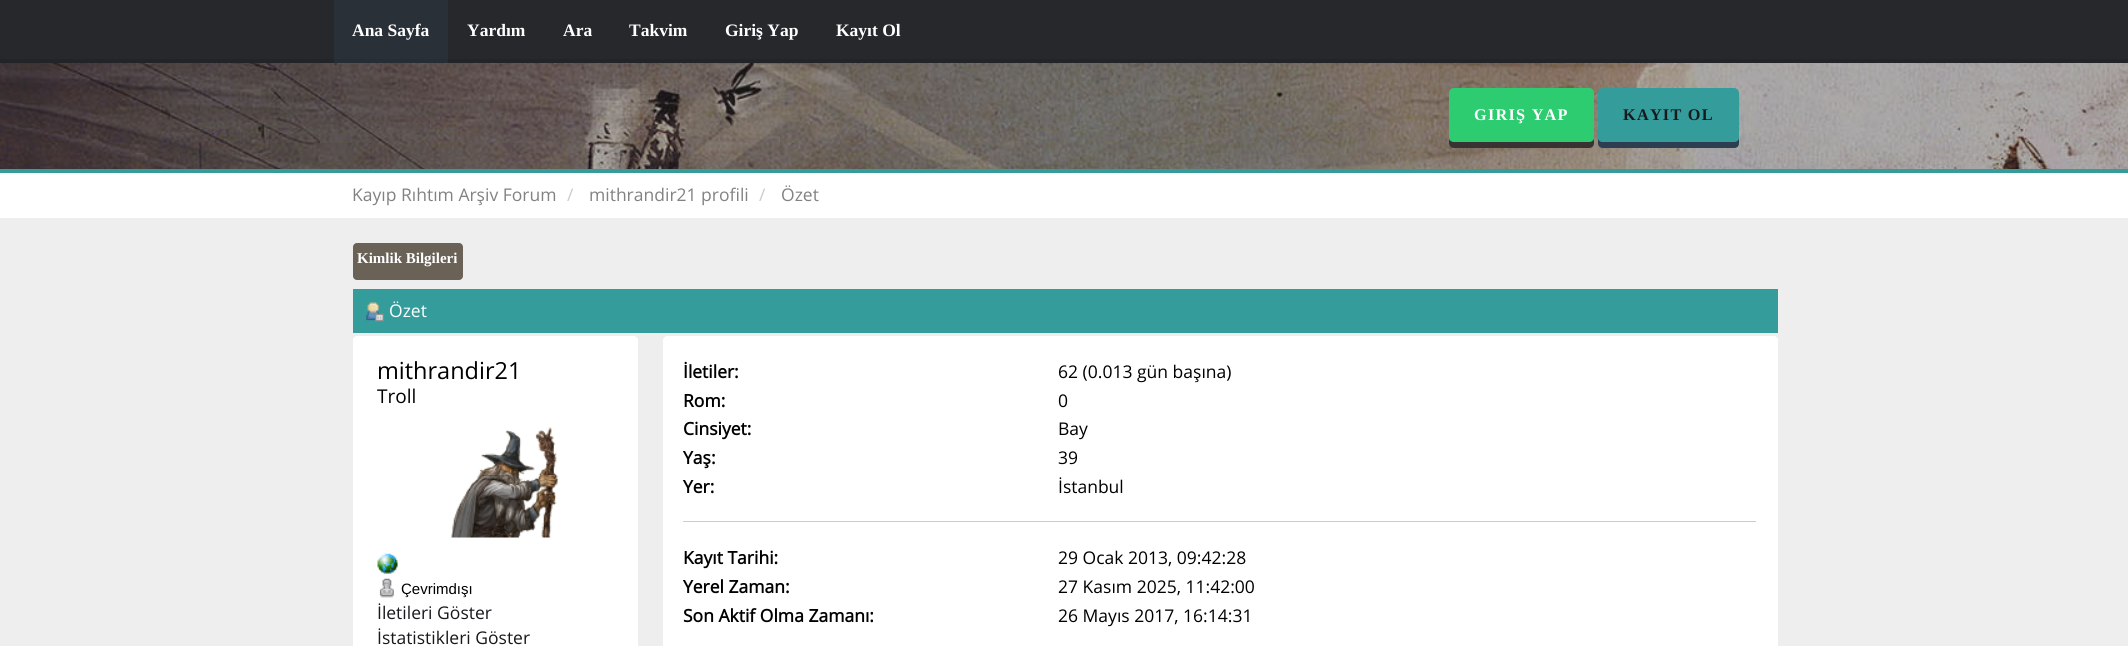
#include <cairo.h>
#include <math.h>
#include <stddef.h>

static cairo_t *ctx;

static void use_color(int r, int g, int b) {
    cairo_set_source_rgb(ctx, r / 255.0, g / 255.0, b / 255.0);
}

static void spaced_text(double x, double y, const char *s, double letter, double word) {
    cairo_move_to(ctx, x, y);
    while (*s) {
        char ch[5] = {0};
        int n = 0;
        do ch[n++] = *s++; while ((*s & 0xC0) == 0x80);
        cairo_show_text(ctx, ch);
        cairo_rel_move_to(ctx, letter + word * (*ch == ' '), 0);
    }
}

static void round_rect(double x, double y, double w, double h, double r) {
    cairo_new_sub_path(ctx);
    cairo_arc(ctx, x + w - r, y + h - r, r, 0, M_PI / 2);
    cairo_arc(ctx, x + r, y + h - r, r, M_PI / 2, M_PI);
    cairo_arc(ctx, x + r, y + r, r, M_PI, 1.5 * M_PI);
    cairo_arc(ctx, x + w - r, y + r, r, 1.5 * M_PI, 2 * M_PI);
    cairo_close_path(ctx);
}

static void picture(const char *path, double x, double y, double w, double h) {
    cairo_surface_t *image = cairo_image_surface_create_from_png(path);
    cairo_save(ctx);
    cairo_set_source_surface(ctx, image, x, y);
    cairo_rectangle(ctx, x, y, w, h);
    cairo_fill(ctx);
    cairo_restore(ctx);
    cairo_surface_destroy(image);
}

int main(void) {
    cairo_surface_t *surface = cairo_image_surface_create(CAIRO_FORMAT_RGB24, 2128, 646);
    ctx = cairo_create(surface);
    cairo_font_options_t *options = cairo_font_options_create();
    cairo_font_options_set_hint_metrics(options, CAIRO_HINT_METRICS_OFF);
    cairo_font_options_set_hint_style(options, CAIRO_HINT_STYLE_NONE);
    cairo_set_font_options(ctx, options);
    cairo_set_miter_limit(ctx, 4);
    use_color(238, 238, 238);
    cairo_paint(ctx);
    use_color(38, 40, 43);
    cairo_rectangle(ctx, 0, 0, 2128, 59);
    cairo_fill(ctx);
    use_color(34, 36, 39);
    cairo_rectangle(ctx, 0, 59, 2128, 4);
    cairo_fill(ctx);
    use_color(42, 48, 56);
    cairo_rectangle(ctx, 334, 0, 114, 59);
    cairo_fill(ctx);
    use_color(39, 45, 53);
    cairo_rectangle(ctx, 334, 59, 114, 4);
    cairo_fill(ctx);
    cairo_select_font_face(ctx, "Liberation Serif", CAIRO_FONT_SLANT_NORMAL, CAIRO_FONT_WEIGHT_BOLD);
    cairo_set_font_size(ctx, 17.5);
    use_color(255, 255, 255);
    cairo_move_to(ctx, 352, 36);
    cairo_show_text(ctx, "Ana Sayfa");
    cairo_move_to(ctx, 467, 36);
    cairo_show_text(ctx, "Yardım");
    cairo_move_to(ctx, 563, 36);
    cairo_show_text(ctx, "Ara");
    cairo_move_to(ctx, 629, 36);
    cairo_show_text(ctx, "Takvim");
    cairo_move_to(ctx, 725, 36);
    cairo_show_text(ctx, "Giriş Yap");
    cairo_move_to(ctx, 836, 36);
    cairo_show_text(ctx, "Kayıt Ol");
    picture("img1.png", 0, 63, 2128, 106);
    use_color(53, 156, 156);
    cairo_rectangle(ctx, 0, 169, 2128, 4);
    cairo_fill(ctx);
    use_color(46, 204, 113);
    round_rect(1449, 88, 145, 60, 5);
    cairo_fill(ctx);
    use_color(56, 50, 50);
    cairo_new_path(ctx);
    cairo_move_to(ctx, 1449, 138);
    cairo_line_to(ctx, 1449, 143);
    cairo_curve_to(ctx, 1449, 146, 1451, 148, 1454, 148);
    cairo_line_to(ctx, 1589, 148);
    cairo_curve_to(ctx, 1592, 148, 1594, 146, 1594, 143);
    cairo_line_to(ctx, 1594, 138);
    cairo_curve_to(ctx, 1594, 140, 1592, 142, 1589, 142);
    cairo_line_to(ctx, 1454, 142);
    cairo_curve_to(ctx, 1451, 142, 1449, 140, 1449, 138);
    cairo_close_path(ctx);
    cairo_fill(ctx);
    cairo_set_font_size(ctx, 16.25);
    use_color(255, 255, 255);
    spaced_text(1474, 120, "GIRIŞ YAP", 1.25, 0);
    use_color(53, 156, 156);
    round_rect(1598, 88, 141, 60, 5);
    cairo_fill(ctx);
    use_color(44, 62, 80);
    cairo_new_path(ctx);
    cairo_move_to(ctx, 1598, 138);
    cairo_line_to(ctx, 1598, 143);
    cairo_curve_to(ctx, 1598, 146, 1600, 148, 1603, 148);
    cairo_line_to(ctx, 1734, 148);
    cairo_curve_to(ctx, 1737, 148, 1739, 146, 1739, 143);
    cairo_line_to(ctx, 1739, 138);
    cairo_curve_to(ctx, 1739, 140, 1737, 142, 1734, 142);
    cairo_line_to(ctx, 1602, 142);
    cairo_curve_to(ctx, 1600, 142, 1598, 140, 1598, 138);
    cairo_close_path(ctx);
    cairo_fill(ctx);
    use_color(23, 25, 28);
    spaced_text(1623, 120, "KAYIT OL", 1.25, 0);
    use_color(255, 255, 255);
    cairo_rectangle(ctx, 0, 173, 2128, 45);
    cairo_fill(ctx);
    cairo_select_font_face(ctx, "Open Sans", CAIRO_FONT_SLANT_NORMAL, CAIRO_FONT_WEIGHT_NORMAL);
    cairo_set_font_size(ctx, 17.5);
    use_color(130, 130, 130);
    cairo_move_to(ctx, 352, 201);
    cairo_show_text(ctx, "Kayıp Rıhtım Arşiv Forum");
    use_color(204, 204, 204);
    cairo_move_to(ctx, 567, 201);
    cairo_show_text(ctx, "/");
    use_color(130, 130, 130);
    cairo_move_to(ctx, 589, 201);
    cairo_show_text(ctx, "mithrandir21 profili");
    use_color(204, 204, 204);
    cairo_move_to(ctx, 759, 201);
    cairo_show_text(ctx, "/");
    use_color(130, 130, 130);
    cairo_move_to(ctx, 781, 201);
    cairo_show_text(ctx, "Özet");
    use_color(107, 98, 87);
    round_rect(353, 243, 110, 37, 4);
    cairo_fill(ctx);
    cairo_select_font_face(ctx, "Liberation Serif", CAIRO_FONT_SLANT_NORMAL, CAIRO_FONT_WEIGHT_BOLD);
    cairo_set_font_size(ctx, 15);
    use_color(255, 255, 255);
    cairo_move_to(ctx, 357, 263);
    cairo_show_text(ctx, "Kimlik Bilgileri");
    use_color(53, 156, 156);
    cairo_rectangle(ctx, 353, 289, 1425, 44);
    cairo_fill(ctx);
    picture("img2.png", 366, 302, 18, 20);
    cairo_select_font_face(ctx, "Open Sans", CAIRO_FONT_SLANT_NORMAL, CAIRO_FONT_WEIGHT_NORMAL);
    cairo_set_font_size(ctx, 17.5);
    use_color(255, 255, 255);
    cairo_move_to(ctx, 389, 317);
    cairo_show_text(ctx, "Özet");
    round_rect(353, 336, 285, 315, 5);
    cairo_fill(ctx);
    cairo_new_path(ctx);
    cairo_move_to(ctx, 358, 336);
    cairo_line_to(ctx, 633, 336);
    cairo_curve_to(ctx, 636, 336, 638, 338, 638, 341);
    cairo_line_to(ctx, 638, 350);
    cairo_line_to(ctx, 353, 350);
    cairo_line_to(ctx, 353, 341);
    cairo_curve_to(ctx, 353, 338, 355, 336, 358, 336);
    cairo_close_path(ctx);
    cairo_fill(ctx);
    cairo_set_font_size(ctx, 23.5);
    use_color(0, 0, 0);
    cairo_move_to(ctx, 377, 379);
    cairo_show_text(ctx, "mithrandir21");
    cairo_set_font_size(ctx, 19);
    cairo_move_to(ctx, 377, 403);
    cairo_show_text(ctx, "Troll");
    picture("img3.png", 451, 427, 108, 111);
    picture("img4.png", 377, 553, 21, 21);
    picture("img5.png", 379, 578, 15, 20);
    cairo_select_font_face(ctx, "Liberation Sans", CAIRO_FONT_SLANT_NORMAL, CAIRO_FONT_WEIGHT_NORMAL);
    cairo_set_font_size(ctx, 15);
    cairo_move_to(ctx, 401, 594);
    cairo_show_text(ctx, "Çevrimdışı");
    cairo_select_font_face(ctx, "Open Sans", CAIRO_FONT_SLANT_NORMAL, CAIRO_FONT_WEIGHT_NORMAL);
    cairo_set_font_size(ctx, 17.5);
    use_color(23, 25, 28);
    cairo_move_to(ctx, 377, 619);
    cairo_show_text(ctx, "İletileri Göster");
    cairo_move_to(ctx, 377, 644);
    cairo_show_text(ctx, "İstatistikleri Göster");
    use_color(255, 255, 255);
    round_rect(663, 336, 1115, 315, 5);
    cairo_fill(ctx);
    cairo_new_path(ctx);
    cairo_move_to(ctx, 668, 336);
    cairo_line_to(ctx, 1773, 336);
    cairo_curve_to(ctx, 1776, 336, 1778, 338, 1778, 341);
    cairo_line_to(ctx, 1778, 350);
    cairo_line_to(ctx, 663, 350);
    cairo_line_to(ctx, 663, 341);
    cairo_curve_to(ctx, 663, 338, 665, 336, 668, 336);
    cairo_close_path(ctx);
    cairo_fill(ctx);
    use_color(204, 204, 204);
    cairo_rectangle(ctx, 683, 521, 1073, 1);
    cairo_fill(ctx);
    cairo_select_font_face(ctx, "Open Sans", CAIRO_FONT_SLANT_NORMAL, CAIRO_FONT_WEIGHT_BOLD);
    use_color(0, 0, 0);
    cairo_move_to(ctx, 683, 378);
    cairo_show_text(ctx, "İletiler:");
    cairo_select_font_face(ctx, "Open Sans", CAIRO_FONT_SLANT_NORMAL, CAIRO_FONT_WEIGHT_NORMAL);
    cairo_move_to(ctx, 1058, 378);
    cairo_show_text(ctx, "62 (0.013 gün başına)");
    cairo_select_font_face(ctx, "Open Sans", CAIRO_FONT_SLANT_NORMAL, CAIRO_FONT_WEIGHT_BOLD);
    cairo_move_to(ctx, 683, 407);
    cairo_show_text(ctx, "Rom:");
    cairo_select_font_face(ctx, "Open Sans", CAIRO_FONT_SLANT_NORMAL, CAIRO_FONT_WEIGHT_NORMAL);
    cairo_move_to(ctx, 1058, 407);
    cairo_show_text(ctx, "0");
    cairo_select_font_face(ctx, "Open Sans", CAIRO_FONT_SLANT_NORMAL, CAIRO_FONT_WEIGHT_BOLD);
    cairo_move_to(ctx, 683, 435);
    cairo_show_text(ctx, "Cinsiyet:");
    cairo_select_font_face(ctx, "Open Sans", CAIRO_FONT_SLANT_NORMAL, CAIRO_FONT_WEIGHT_NORMAL);
    cairo_move_to(ctx, 1058, 435);
    cairo_show_text(ctx, "Bay");
    cairo_select_font_face(ctx, "Open Sans", CAIRO_FONT_SLANT_NORMAL, CAIRO_FONT_WEIGHT_BOLD);
    cairo_move_to(ctx, 683, 464);
    cairo_show_text(ctx, "Yaş:");
    cairo_select_font_face(ctx, "Open Sans", CAIRO_FONT_SLANT_NORMAL, CAIRO_FONT_WEIGHT_NORMAL);
    cairo_move_to(ctx, 1058, 464);
    cairo_show_text(ctx, "39");
    cairo_select_font_face(ctx, "Open Sans", CAIRO_FONT_SLANT_NORMAL, CAIRO_FONT_WEIGHT_BOLD);
    cairo_move_to(ctx, 683, 493);
    cairo_show_text(ctx, "Yer:");
    cairo_select_font_face(ctx, "Open Sans", CAIRO_FONT_SLANT_NORMAL, CAIRO_FONT_WEIGHT_NORMAL);
    cairo_move_to(ctx, 1058, 493);
    cairo_show_text(ctx, "İstanbul");
    cairo_select_font_face(ctx, "Open Sans", CAIRO_FONT_SLANT_NORMAL, CAIRO_FONT_WEIGHT_BOLD);
    cairo_move_to(ctx, 683, 564);
    cairo_show_text(ctx, "Kayıt Tarihi:");
    cairo_select_font_face(ctx, "Open Sans", CAIRO_FONT_SLANT_NORMAL, CAIRO_FONT_WEIGHT_NORMAL);
    cairo_move_to(ctx, 1058, 564);
    cairo_show_text(ctx, "29 Ocak 2013, 09:42:28");
    cairo_select_font_face(ctx, "Open Sans", CAIRO_FONT_SLANT_NORMAL, CAIRO_FONT_WEIGHT_BOLD);
    cairo_move_to(ctx, 683, 593);
    cairo_show_text(ctx, "Yerel Zaman:");
    cairo_select_font_face(ctx, "Open Sans", CAIRO_FONT_SLANT_NORMAL, CAIRO_FONT_WEIGHT_NORMAL);
    cairo_move_to(ctx, 1058, 593);
    cairo_show_text(ctx, "27 Kasım 2025, 11:42:00");
    cairo_select_font_face(ctx, "Open Sans", CAIRO_FONT_SLANT_NORMAL, CAIRO_FONT_WEIGHT_BOLD);
    cairo_move_to(ctx, 683, 622);
    cairo_show_text(ctx, "Son Aktif Olma Zamanı:");
    cairo_select_font_face(ctx, "Open Sans", CAIRO_FONT_SLANT_NORMAL, CAIRO_FONT_WEIGHT_NORMAL);
    cairo_move_to(ctx, 1058, 622);
    cairo_show_text(ctx, "26 Mayıs 2017, 16:14:31");
    cairo_surface_write_to_png(surface, "result.png");
    cairo_font_options_destroy(options);
    cairo_destroy(ctx);
    cairo_surface_destroy(surface);
    return 0;
}
